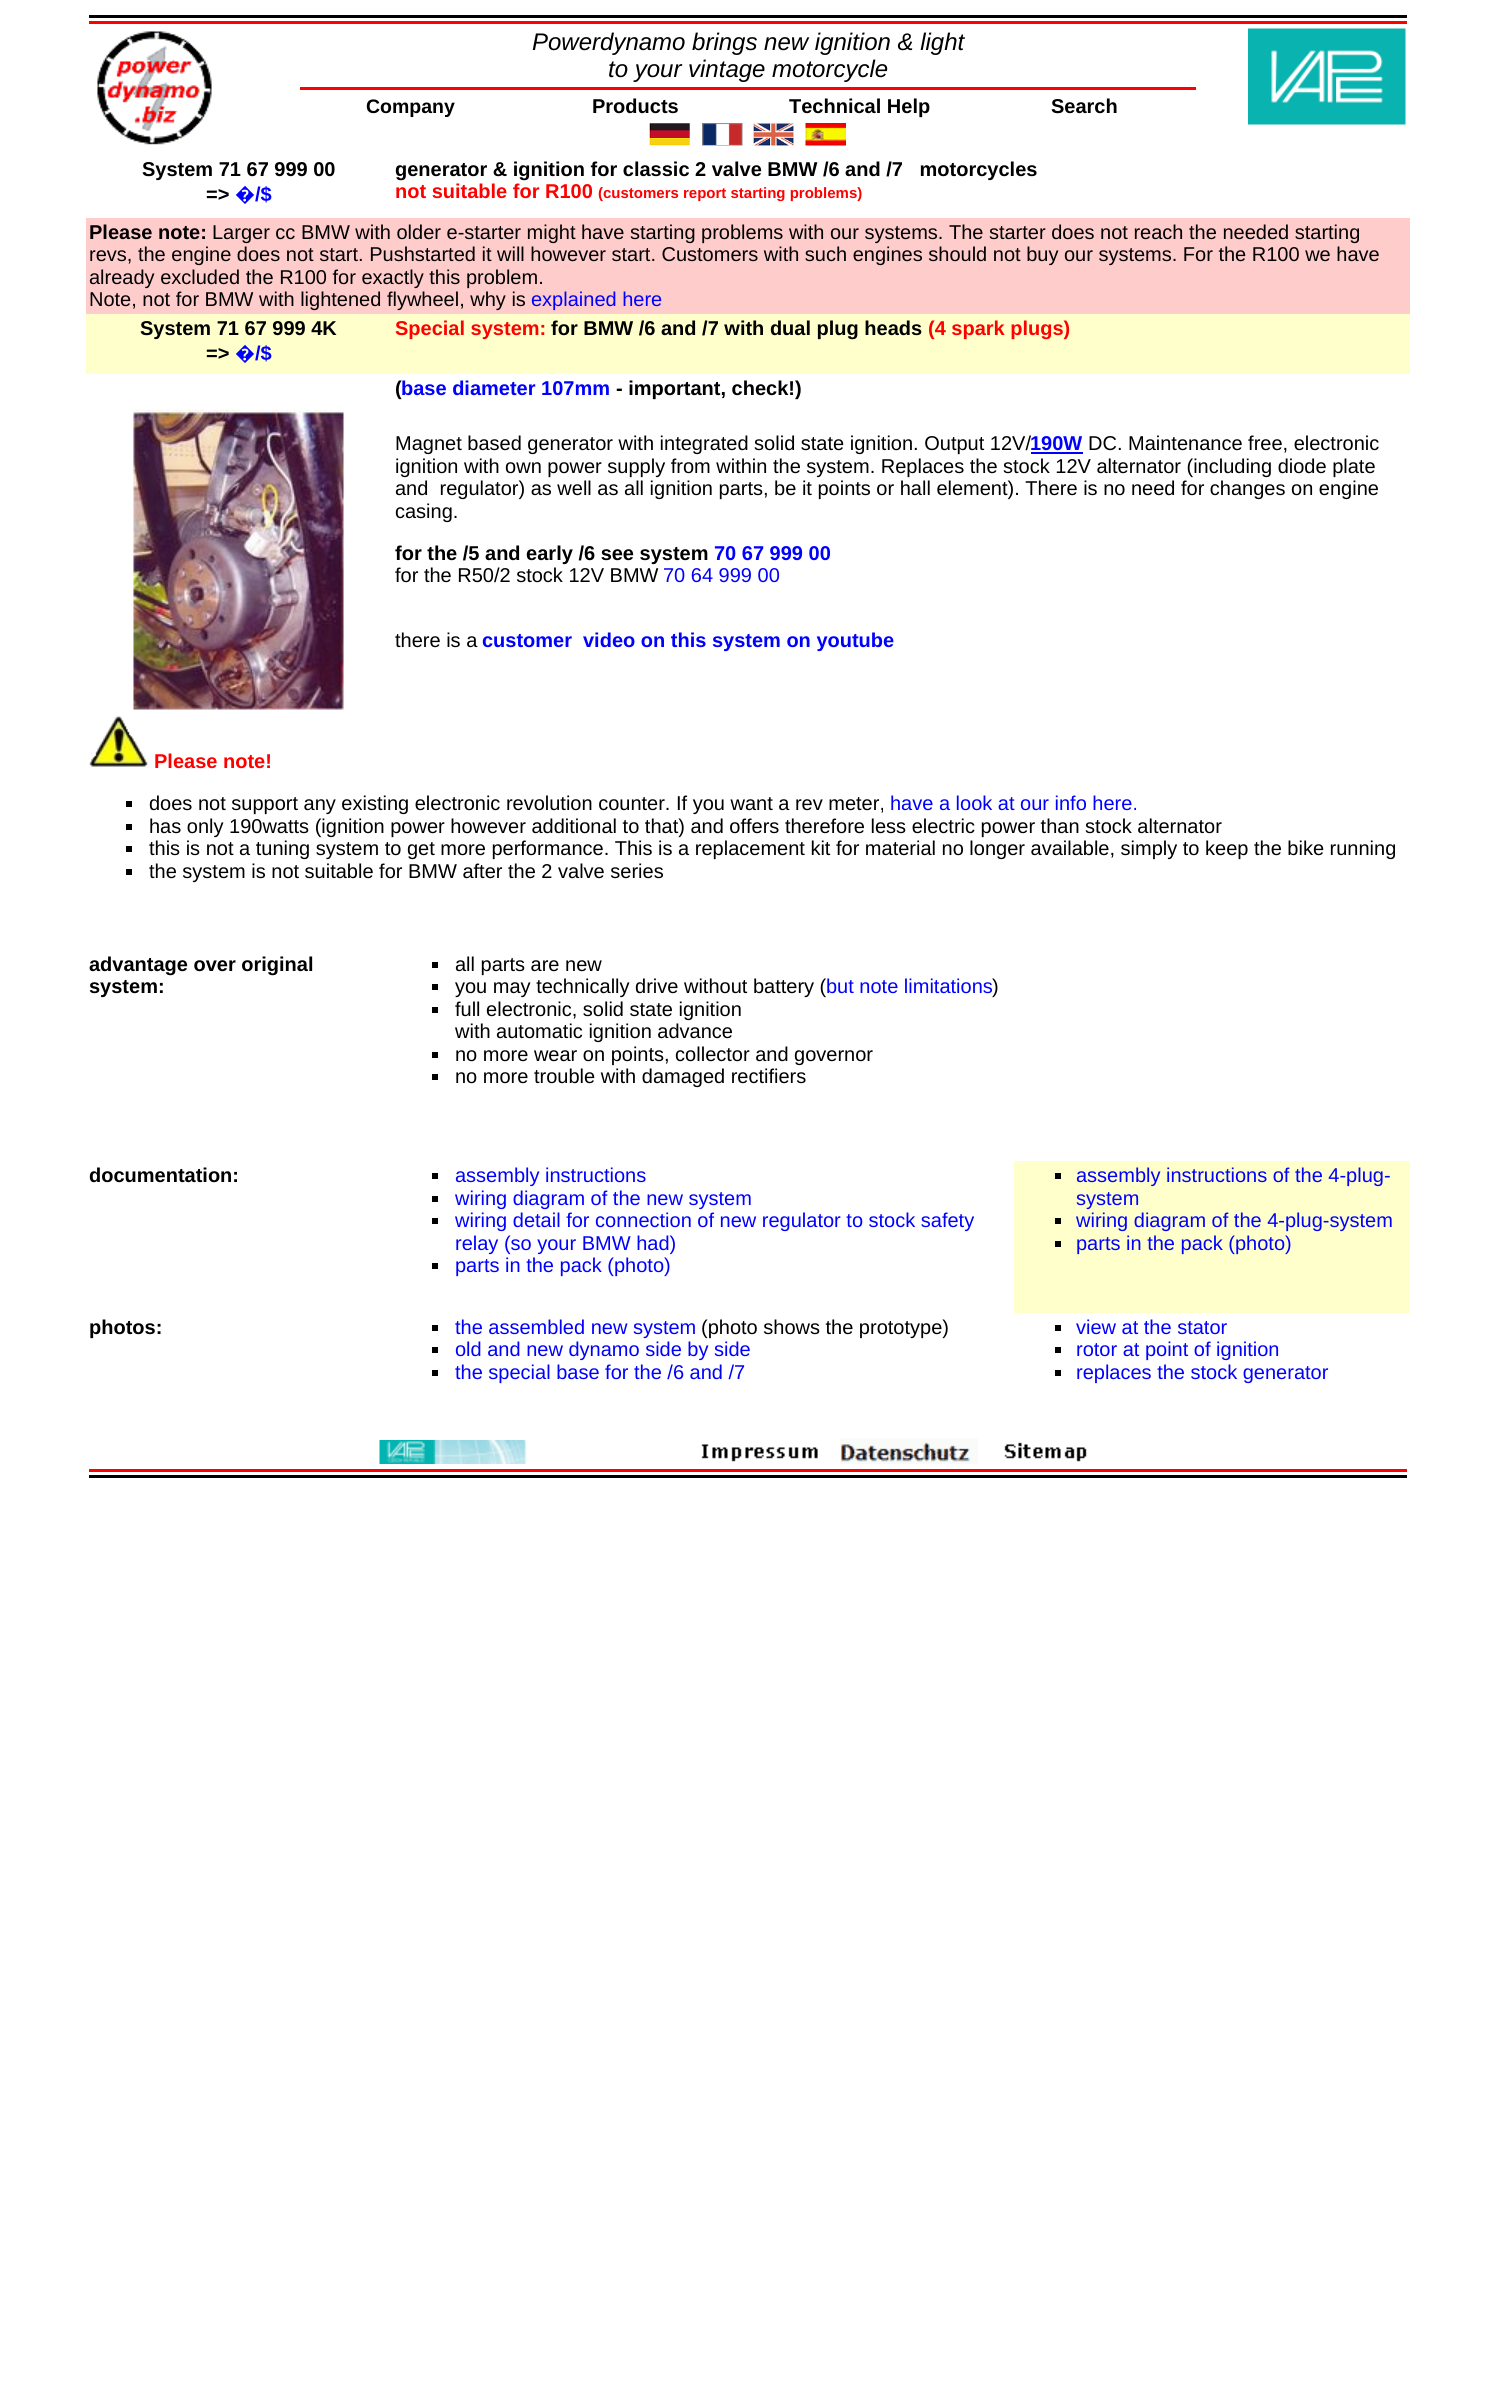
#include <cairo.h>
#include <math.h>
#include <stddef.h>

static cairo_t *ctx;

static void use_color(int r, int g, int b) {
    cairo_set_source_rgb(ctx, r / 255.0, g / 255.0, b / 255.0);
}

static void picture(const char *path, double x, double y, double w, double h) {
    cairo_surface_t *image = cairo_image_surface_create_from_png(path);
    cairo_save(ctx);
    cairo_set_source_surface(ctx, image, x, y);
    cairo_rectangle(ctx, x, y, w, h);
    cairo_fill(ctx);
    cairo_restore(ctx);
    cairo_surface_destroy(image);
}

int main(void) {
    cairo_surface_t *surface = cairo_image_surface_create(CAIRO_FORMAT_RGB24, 1495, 2405);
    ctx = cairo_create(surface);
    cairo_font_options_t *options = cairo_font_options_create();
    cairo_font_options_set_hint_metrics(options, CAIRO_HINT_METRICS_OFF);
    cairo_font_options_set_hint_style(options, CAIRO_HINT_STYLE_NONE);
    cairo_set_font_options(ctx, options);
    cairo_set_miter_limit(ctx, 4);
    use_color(255, 255, 255);
    cairo_paint(ctx);
    use_color(0, 0, 0);
    cairo_rectangle(ctx, 89, 15, 1318, 3);
    cairo_fill(ctx);
    use_color(255, 0, 0);
    cairo_rectangle(ctx, 89, 21, 1318, 3);
    cairo_fill(ctx);
    picture("img1.png", 96, 31, 116, 114);
    cairo_select_font_face(ctx, "Liberation Sans", CAIRO_FONT_SLANT_ITALIC, CAIRO_FONT_WEIGHT_NORMAL);
    cairo_set_font_size(ctx, 24);
    use_color(0, 0, 0);
    cairo_move_to(ctx, 532, 50);
    cairo_show_text(ctx, "Powerdynamo brings new ignition & light");
    cairo_move_to(ctx, 608, 77);
    cairo_show_text(ctx, "to your vintage motorcycle");
    picture("img2.png", 1248, 28, 158, 97);
    use_color(255, 0, 0);
    cairo_rectangle(ctx, 300, 87, 896, 3);
    cairo_fill(ctx);
    cairo_select_font_face(ctx, "Liberation Sans", CAIRO_FONT_SLANT_NORMAL, CAIRO_FONT_WEIGHT_BOLD);
    cairo_set_font_size(ctx, 19.5);
    use_color(0, 0, 0);
    cairo_move_to(ctx, 366, 113);
    cairo_show_text(ctx, "Company");
    cairo_set_font_size(ctx, 20);
    cairo_move_to(ctx, 592, 113);
    cairo_show_text(ctx, "Products");
    cairo_move_to(ctx, 789, 113);
    cairo_show_text(ctx, "Technical Help");
    cairo_move_to(ctx, 1051, 113);
    cairo_show_text(ctx, "Search");
    picture("img3.png", 649, 123, 41, 23);
    picture("img4.png", 702, 123, 41, 23);
    picture("img5.png", 753, 123, 41, 23);
    picture("img6.png", 805, 123, 41, 23);
    cairo_move_to(ctx, 142, 176);
    cairo_show_text(ctx, "System 71 67 999 00");
    cairo_move_to(ctx, 206, 201);
    cairo_show_text(ctx, "=>");
    cairo_select_font_face(ctx, "Noto Sans Black", CAIRO_FONT_SLANT_NORMAL, CAIRO_FONT_WEIGHT_NORMAL);
    use_color(0, 0, 255);
    cairo_move_to(ctx, 235, 201);
    cairo_show_text(ctx, "�");
    cairo_select_font_face(ctx, "Liberation Sans", CAIRO_FONT_SLANT_NORMAL, CAIRO_FONT_WEIGHT_BOLD);
    cairo_move_to(ctx, 255, 201);
    cairo_show_text(ctx, "/$");
    use_color(0, 0, 0);
    cairo_move_to(ctx, 395, 176);
    cairo_show_text(ctx, "generator & ignition for classic 2 valve BMW /6 and /7   motorcycles");
    use_color(255, 0, 0);
    cairo_move_to(ctx, 395, 198);
    cairo_show_text(ctx, "not suitable for R100");
    cairo_set_font_size(ctx, 15);
    cairo_move_to(ctx, 598, 198);
    cairo_show_text(ctx, "(customers report starting problems)");
    use_color(255, 204, 204);
    cairo_rectangle(ctx, 86, 218, 1324, 96);
    cairo_fill(ctx);
    cairo_set_font_size(ctx, 20);
    use_color(0, 0, 0);
    cairo_move_to(ctx, 89, 239);
    cairo_show_text(ctx, "Please note:");
    cairo_select_font_face(ctx, "Liberation Sans", CAIRO_FONT_SLANT_NORMAL, CAIRO_FONT_WEIGHT_NORMAL);
    cairo_move_to(ctx, 212, 239);
    cairo_show_text(ctx, "Larger cc BMW with older e-starter might have starting problems with our systems. The starter does not reach the needed starting");
    cairo_move_to(ctx, 89, 261);
    cairo_show_text(ctx, "revs, the engine does not start. Pushstarted it will however start. Customers with such engines should not buy our systems. For the R100 we have");
    cairo_move_to(ctx, 89, 284);
    cairo_show_text(ctx, "already excluded the R100 for exactly this problem.");
    cairo_move_to(ctx, 89, 306);
    cairo_show_text(ctx, "Note, not for BMW with lightened flywheel, why is");
    use_color(0, 0, 255);
    cairo_move_to(ctx, 531, 306);
    cairo_show_text(ctx, "explained here");
    use_color(255, 255, 204);
    cairo_rectangle(ctx, 86, 314, 1324, 60);
    cairo_fill(ctx);
    cairo_select_font_face(ctx, "Liberation Sans", CAIRO_FONT_SLANT_NORMAL, CAIRO_FONT_WEIGHT_BOLD);
    use_color(0, 0, 0);
    cairo_move_to(ctx, 140, 335);
    cairo_show_text(ctx, "System 71 67 999 4K");
    cairo_move_to(ctx, 206, 360);
    cairo_show_text(ctx, "=>");
    cairo_select_font_face(ctx, "Noto Sans Black", CAIRO_FONT_SLANT_NORMAL, CAIRO_FONT_WEIGHT_NORMAL);
    use_color(0, 0, 255);
    cairo_move_to(ctx, 235, 360);
    cairo_show_text(ctx, "�");
    cairo_select_font_face(ctx, "Liberation Sans", CAIRO_FONT_SLANT_NORMAL, CAIRO_FONT_WEIGHT_BOLD);
    cairo_move_to(ctx, 255, 360);
    cairo_show_text(ctx, "/$");
    use_color(255, 0, 0);
    cairo_move_to(ctx, 395, 335);
    cairo_show_text(ctx, "Special system:");
    use_color(0, 0, 0);
    cairo_move_to(ctx, 551, 335);
    cairo_show_text(ctx, "for BMW /6 and /7 with dual plug heads");
    use_color(255, 0, 0);
    cairo_move_to(ctx, 928, 335);
    cairo_show_text(ctx, "(4 spark plugs)");
    use_color(0, 0, 0);
    cairo_move_to(ctx, 395, 395);
    cairo_show_text(ctx, "(");
    use_color(0, 0, 255);
    cairo_move_to(ctx, 401, 395);
    cairo_show_text(ctx, "base diameter 107mm");
    use_color(0, 0, 0);
    cairo_move_to(ctx, 616, 395);
    cairo_show_text(ctx, "- important, check!)");
    picture("img7.png", 133, 409, 211, 301);
    cairo_select_font_face(ctx, "Liberation Sans", CAIRO_FONT_SLANT_NORMAL, CAIRO_FONT_WEIGHT_NORMAL);
    cairo_move_to(ctx, 395, 450);
    cairo_show_text(ctx, "Magnet based generator with integrated solid state ignition. Output 12V/");
    cairo_select_font_face(ctx, "Liberation Sans", CAIRO_FONT_SLANT_NORMAL, CAIRO_FONT_WEIGHT_BOLD);
    use_color(0, 0, 255);
    cairo_move_to(ctx, 1030, 450);
    cairo_show_text(ctx, "190W");
    cairo_rectangle(ctx, 1031, 452, 52, 2);
    cairo_fill(ctx);
    cairo_select_font_face(ctx, "Liberation Sans", CAIRO_FONT_SLANT_NORMAL, CAIRO_FONT_WEIGHT_NORMAL);
    use_color(0, 0, 0);
    cairo_move_to(ctx, 1088, 450);
    cairo_show_text(ctx, "DC. Maintenance free, electronic");
    cairo_move_to(ctx, 395, 473);
    cairo_show_text(ctx, "ignition with own power supply from within the system. Replaces the stock 12V alternator (including diode plate");
    cairo_move_to(ctx, 395, 495);
    cairo_show_text(ctx, "and  regulator) as well as all ignition parts, be it points or hall element). There is no need for changes on engine");
    cairo_move_to(ctx, 395, 518);
    cairo_show_text(ctx, "casing.");
    cairo_select_font_face(ctx, "Liberation Sans", CAIRO_FONT_SLANT_NORMAL, CAIRO_FONT_WEIGHT_BOLD);
    cairo_move_to(ctx, 395, 560);
    cairo_show_text(ctx, "for the /5 and early /6 see system");
    use_color(0, 0, 255);
    cairo_move_to(ctx, 714, 560);
    cairo_show_text(ctx, "70 67 999 00");
    cairo_select_font_face(ctx, "Liberation Sans", CAIRO_FONT_SLANT_NORMAL, CAIRO_FONT_WEIGHT_NORMAL);
    use_color(0, 0, 0);
    cairo_move_to(ctx, 395, 582);
    cairo_show_text(ctx, "for the R50/2 stock 12V BMW");
    use_color(0, 0, 255);
    cairo_move_to(ctx, 663, 582);
    cairo_show_text(ctx, "70 64 999 00");
    use_color(0, 0, 0);
    cairo_move_to(ctx, 395, 647);
    cairo_show_text(ctx, "there is a");
    cairo_select_font_face(ctx, "Liberation Sans", CAIRO_FONT_SLANT_NORMAL, CAIRO_FONT_WEIGHT_BOLD);
    use_color(0, 0, 255);
    cairo_move_to(ctx, 482, 647);
    cairo_show_text(ctx, "customer");
    cairo_move_to(ctx, 583, 647);
    cairo_show_text(ctx, "video on this system on youtube");
    picture("img8.png", 89, 715, 59, 52);
    use_color(255, 0, 0);
    cairo_move_to(ctx, 154, 768);
    cairo_show_text(ctx, "Please note!");
    use_color(0, 0, 0);
    cairo_rectangle(ctx, 126, 801, 6, 6);
    cairo_fill(ctx);
    cairo_select_font_face(ctx, "Liberation Sans", CAIRO_FONT_SLANT_NORMAL, CAIRO_FONT_WEIGHT_NORMAL);
    cairo_move_to(ctx, 149, 810);
    cairo_show_text(ctx, "does not support any existing electronic revolution counter. If you want a rev meter,");
    use_color(0, 0, 255);
    cairo_move_to(ctx, 890, 810);
    cairo_show_text(ctx, "have a look at our info here.");
    use_color(0, 0, 0);
    cairo_rectangle(ctx, 126, 824, 6, 6);
    cairo_fill(ctx);
    cairo_move_to(ctx, 149, 833);
    cairo_show_text(ctx, "has only 190watts (ignition power however additional to that) and offers therefore less electric power than stock alternator");
    cairo_rectangle(ctx, 126, 846, 6, 6);
    cairo_fill(ctx);
    cairo_move_to(ctx, 149, 855);
    cairo_show_text(ctx, "this is not a tuning system to get more performance. This is a replacement kit for material no longer available, simply to keep the bike running");
    cairo_rectangle(ctx, 126, 869, 6, 6);
    cairo_fill(ctx);
    cairo_move_to(ctx, 149, 878);
    cairo_show_text(ctx, "the system is not suitable for BMW after the 2 valve series");
    cairo_select_font_face(ctx, "Liberation Sans", CAIRO_FONT_SLANT_NORMAL, CAIRO_FONT_WEIGHT_BOLD);
    cairo_move_to(ctx, 89, 971);
    cairo_show_text(ctx, "advantage over original");
    cairo_move_to(ctx, 89, 993);
    cairo_show_text(ctx, "system:");
    cairo_rectangle(ctx, 432, 962, 6, 6);
    cairo_fill(ctx);
    cairo_select_font_face(ctx, "Liberation Sans", CAIRO_FONT_SLANT_NORMAL, CAIRO_FONT_WEIGHT_NORMAL);
    cairo_move_to(ctx, 455, 971);
    cairo_show_text(ctx, "all parts are new");
    cairo_rectangle(ctx, 432, 984, 6, 6);
    cairo_fill(ctx);
    cairo_move_to(ctx, 455, 993);
    cairo_show_text(ctx, "you may technically drive without battery (");
    use_color(0, 0, 255);
    cairo_move_to(ctx, 826, 993);
    cairo_show_text(ctx, "but note limitations");
    use_color(0, 0, 0);
    cairo_move_to(ctx, 992, 993);
    cairo_show_text(ctx, ")");
    cairo_rectangle(ctx, 432, 1007, 6, 6);
    cairo_fill(ctx);
    cairo_move_to(ctx, 455, 1016);
    cairo_show_text(ctx, "full electronic, solid state ignition");
    cairo_move_to(ctx, 455, 1038);
    cairo_show_text(ctx, "with automatic ignition advance");
    cairo_rectangle(ctx, 432, 1052, 6, 6);
    cairo_fill(ctx);
    cairo_move_to(ctx, 455, 1061);
    cairo_show_text(ctx, "no more wear on points, collector and governor");
    cairo_rectangle(ctx, 432, 1074, 6, 6);
    cairo_fill(ctx);
    cairo_move_to(ctx, 455, 1083);
    cairo_show_text(ctx, "no more trouble with damaged rectifiers");
    cairo_select_font_face(ctx, "Liberation Sans", CAIRO_FONT_SLANT_NORMAL, CAIRO_FONT_WEIGHT_BOLD);
    cairo_move_to(ctx, 89, 1182);
    cairo_show_text(ctx, "documentation:");
    cairo_rectangle(ctx, 432, 1173, 6, 6);
    cairo_fill(ctx);
    cairo_select_font_face(ctx, "Liberation Sans", CAIRO_FONT_SLANT_NORMAL, CAIRO_FONT_WEIGHT_NORMAL);
    use_color(0, 0, 255);
    cairo_move_to(ctx, 455, 1182);
    cairo_show_text(ctx, "assembly instructions");
    use_color(0, 0, 0);
    cairo_rectangle(ctx, 432, 1196, 6, 6);
    cairo_fill(ctx);
    use_color(0, 0, 255);
    cairo_move_to(ctx, 455, 1205);
    cairo_show_text(ctx, "wiring diagram of the new system");
    use_color(0, 0, 0);
    cairo_rectangle(ctx, 432, 1218, 6, 6);
    cairo_fill(ctx);
    use_color(0, 0, 255);
    cairo_move_to(ctx, 455, 1227);
    cairo_show_text(ctx, "wiring detail for connection of new regulator to stock safety");
    cairo_move_to(ctx, 455, 1250);
    cairo_show_text(ctx, "relay (so your BMW had)");
    use_color(0, 0, 0);
    cairo_rectangle(ctx, 432, 1263, 6, 6);
    cairo_fill(ctx);
    use_color(0, 0, 255);
    cairo_move_to(ctx, 455, 1272);
    cairo_show_text(ctx, "parts in the pack (photo)");
    use_color(255, 255, 204);
    cairo_rectangle(ctx, 1014, 1161, 396, 152);
    cairo_fill(ctx);
    use_color(0, 0, 0);
    cairo_rectangle(ctx, 1055, 1173, 6, 6);
    cairo_fill(ctx);
    use_color(0, 0, 255);
    cairo_move_to(ctx, 1076, 1182);
    cairo_show_text(ctx, "assembly instructions of the 4-plug-");
    cairo_move_to(ctx, 1076, 1205);
    cairo_show_text(ctx, "system");
    use_color(0, 0, 0);
    cairo_rectangle(ctx, 1055, 1218, 6, 6);
    cairo_fill(ctx);
    use_color(0, 0, 255);
    cairo_move_to(ctx, 1076, 1227);
    cairo_show_text(ctx, "wiring diagram of the 4-plug-system");
    use_color(0, 0, 0);
    cairo_rectangle(ctx, 1055, 1241, 6, 6);
    cairo_fill(ctx);
    use_color(0, 0, 255);
    cairo_move_to(ctx, 1076, 1250);
    cairo_show_text(ctx, "parts in the pack (photo)");
    cairo_select_font_face(ctx, "Liberation Sans", CAIRO_FONT_SLANT_NORMAL, CAIRO_FONT_WEIGHT_BOLD);
    use_color(0, 0, 0);
    cairo_move_to(ctx, 89, 1334);
    cairo_show_text(ctx, "photos:");
    cairo_rectangle(ctx, 432, 1325, 6, 6);
    cairo_fill(ctx);
    cairo_select_font_face(ctx, "Liberation Sans", CAIRO_FONT_SLANT_NORMAL, CAIRO_FONT_WEIGHT_NORMAL);
    use_color(0, 0, 255);
    cairo_move_to(ctx, 455, 1334);
    cairo_show_text(ctx, "the assembled new system");
    use_color(0, 0, 0);
    cairo_move_to(ctx, 701, 1334);
    cairo_show_text(ctx, "(photo shows the prototype)");
    cairo_rectangle(ctx, 432, 1347, 6, 6);
    cairo_fill(ctx);
    use_color(0, 0, 255);
    cairo_move_to(ctx, 455, 1356);
    cairo_show_text(ctx, "old and new dynamo side by side");
    use_color(0, 0, 0);
    cairo_rectangle(ctx, 432, 1370, 6, 6);
    cairo_fill(ctx);
    use_color(0, 0, 255);
    cairo_move_to(ctx, 455, 1379);
    cairo_show_text(ctx, "the special base for the /6 and /7");
    use_color(0, 0, 0);
    cairo_rectangle(ctx, 1055, 1325, 6, 6);
    cairo_fill(ctx);
    use_color(0, 0, 255);
    cairo_move_to(ctx, 1076, 1334);
    cairo_show_text(ctx, "view at the stator");
    use_color(0, 0, 0);
    cairo_rectangle(ctx, 1055, 1347, 6, 6);
    cairo_fill(ctx);
    use_color(0, 0, 255);
    cairo_move_to(ctx, 1076, 1356);
    cairo_show_text(ctx, "rotor at point of ignition");
    use_color(0, 0, 0);
    cairo_rectangle(ctx, 1055, 1370, 6, 6);
    cairo_fill(ctx);
    use_color(0, 0, 255);
    cairo_move_to(ctx, 1076, 1379);
    cairo_show_text(ctx, "replaces the stock generator");
    picture("img9.png", 379, 1440, 148, 24);
    picture("img10.png", 701, 1444, 117, 18);
    picture("img11.png", 840, 1438, 138, 26);
    picture("img12.png", 1004, 1442, 83, 20);
    use_color(255, 0, 0);
    cairo_rectangle(ctx, 89, 1469, 1318, 3);
    cairo_fill(ctx);
    use_color(0, 0, 0);
    cairo_rectangle(ctx, 89, 1475, 1318, 3);
    cairo_fill(ctx);
    cairo_surface_write_to_png(surface, "result.png");
    cairo_font_options_destroy(options);
    cairo_destroy(ctx);
    cairo_surface_destroy(surface);
    return 0;
}
